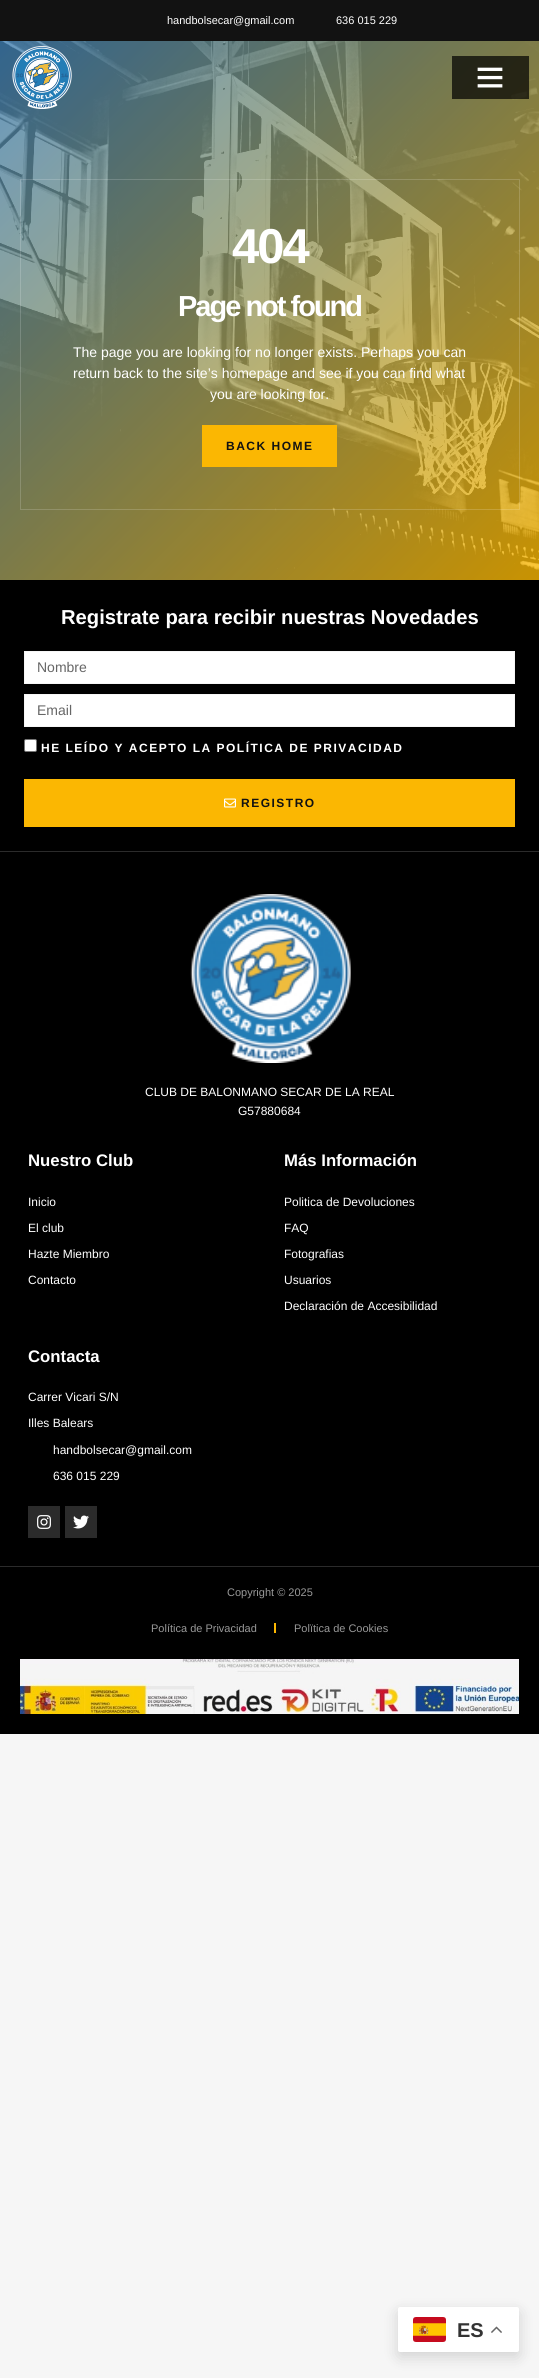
#include <cairo.h>
#include <math.h>
#include <stddef.h>

static cairo_t *ctx;

static void use_color(int r, int g, int b) {
    cairo_set_source_rgb(ctx, r / 255.0, g / 255.0, b / 255.0);
}

static void spaced_text(double x, double y, const char *s, double letter, double word) {
    cairo_move_to(ctx, x, y);
    while (*s) {
        char ch[5] = {0};
        int n = 0;
        do ch[n++] = *s++; while ((*s & 0xC0) == 0x80);
        cairo_show_text(ctx, ch);
        cairo_rel_move_to(ctx, letter + word * (*ch == ' '), 0);
    }
}

static void round_rect(double x, double y, double w, double h, double r) {
    cairo_new_sub_path(ctx);
    cairo_arc(ctx, x + w - r, y + h - r, r, 0, M_PI / 2);
    cairo_arc(ctx, x + r, y + h - r, r, M_PI / 2, M_PI);
    cairo_arc(ctx, x + r, y + r, r, M_PI, 1.5 * M_PI);
    cairo_arc(ctx, x + w - r, y + r, r, 1.5 * M_PI, 2 * M_PI);
    cairo_close_path(ctx);
}

static void shadow(double x, double y, double w, double h, double r, double blur, double alpha) {
    cairo_push_group_with_content(ctx, CAIRO_CONTENT_ALPHA);
    cairo_set_operator(ctx, CAIRO_OPERATOR_SOURCE);
    for (int i = 15; i >= -15 && fmin(w, h) + blur * i / 3 > 0; i -= 2) {
        double e = blur * i / 6;
        cairo_set_source_rgba(ctx, 0, 0, 0, alpha * erfc((i - 1) / 8.5) / 2);
        round_rect(x - e, y - e, w + 2 * e, h + 2 * e, fmax(0, fmin(r + e + blur * .6, fmin(w, h) / 2 + e)));
        cairo_fill(ctx);
    }
    cairo_pattern_t *soft = cairo_pop_group(ctx);
    cairo_mask(ctx, soft);
    cairo_pattern_destroy(soft);
}

static void picture(const char *path, double x, double y, double w, double h) {
    cairo_surface_t *image = cairo_image_surface_create_from_png(path);
    cairo_save(ctx);
    cairo_set_source_surface(ctx, image, x, y);
    cairo_rectangle(ctx, x, y, w, h);
    cairo_fill(ctx);
    cairo_restore(ctx);
    cairo_surface_destroy(image);
}

int main(void) {
    cairo_surface_t *surface = cairo_image_surface_create(CAIRO_FORMAT_RGB24, 539, 2378);
    ctx = cairo_create(surface);
    cairo_font_options_t *options = cairo_font_options_create();
    cairo_font_options_set_hint_metrics(options, CAIRO_HINT_METRICS_OFF);
    cairo_font_options_set_hint_style(options, CAIRO_HINT_STYLE_NONE);
    cairo_set_font_options(ctx, options);
    cairo_set_miter_limit(ctx, 4);
    cairo_pattern_t *gradient;
    use_color(246, 246, 246);
    cairo_paint(ctx);
    use_color(18, 18, 18);
    cairo_rectangle(ctx, 0, 0, 539, 41);
    cairo_fill(ctx);
    cairo_select_font_face(ctx, "Liberation Sans", CAIRO_FONT_SLANT_NORMAL, CAIRO_FONT_WEIGHT_NORMAL);
    cairo_set_font_size(ctx, 11);
    use_color(255, 255, 255);
    cairo_move_to(ctx, 167, 24);
    cairo_show_text(ctx, "handbolsecar@gmail.com");
    cairo_move_to(ctx, 336, 24);
    cairo_show_text(ctx, "636 015 229");
    gradient = cairo_pattern_create_linear(-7.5, 19, 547, 573);
    cairo_pattern_add_color_stop_rgba(gradient, 0, 0.227, 0.486, 0.714, 1);
    cairo_pattern_add_color_stop_rgba(gradient, 1, 0.984, 0.718, 0.008, 1);
    cairo_set_source(ctx, gradient);
    cairo_pattern_destroy(gradient);
    cairo_rectangle(ctx, 0, 41, 539, 539);
    cairo_fill(ctx);
    picture("img3.png", 0, 41, 539, 539);
    picture("img1.png", 12, 46, 60, 63);
    cairo_set_source_rgba(ctx, 0, 0, 0, 0.7);
    cairo_rectangle(ctx, 452, 56, 77, 43);
    cairo_fill(ctx);
    picture("img2.png", 477, 67, 26, 21);
    cairo_rectangle(ctx, 20.5, 179.5, 499, 330);
    cairo_set_source_rgba(ctx, 1, 1, 1, 0.17);
    cairo_set_line_width(ctx, 1);
    cairo_stroke(ctx);
    cairo_select_font_face(ctx, "Liberation Sans", CAIRO_FONT_SLANT_NORMAL, CAIRO_FONT_WEIGHT_BOLD);
    cairo_set_font_size(ctx, 49);
    use_color(255, 255, 255);
    spaced_text(232, 263, "404", -2, 0);
    cairo_set_font_size(ctx, 29);
    spaced_text(178, 316, "Page not found", -2, 0);
    cairo_select_font_face(ctx, "Liberation Sans", CAIRO_FONT_SLANT_NORMAL, CAIRO_FONT_WEIGHT_NORMAL);
    cairo_set_font_size(ctx, 14);
    cairo_move_to(ctx, 73, 357);
    cairo_show_text(ctx, "The page you are looking for no longer exists. Perhaps you can");
    cairo_move_to(ctx, 73, 378);
    cairo_show_text(ctx, "return back to the site’s homepage and see if you can find what");
    cairo_move_to(ctx, 210, 399);
    cairo_show_text(ctx, "you are looking for.");
    use_color(251, 183, 2);
    cairo_rectangle(ctx, 202, 425, 135, 42);
    cairo_fill(ctx);
    cairo_select_font_face(ctx, "Liberation Sans", CAIRO_FONT_SLANT_NORMAL, CAIRO_FONT_WEIGHT_BOLD);
    cairo_set_font_size(ctx, 12);
    use_color(18, 18, 18);
    spaced_text(226, 450, "BACK HOME", 1.5, 0);
    use_color(0, 0, 0);
    cairo_rectangle(ctx, 0, 580, 539, 986);
    cairo_fill(ctx);
    use_color(43, 43, 43);
    cairo_rectangle(ctx, 0, 851, 539, 1);
    cairo_fill(ctx);
    cairo_set_font_size(ctx, 20.2);
    use_color(255, 255, 255);
    cairo_move_to(ctx, 61, 624);
    cairo_show_text(ctx, "Registrate para recibir nuestras Novedades");
    cairo_rectangle(ctx, 24.5, 651.5, 490, 32);
    cairo_fill_preserve(ctx);
    use_color(246, 246, 246);
    cairo_stroke(ctx);
    cairo_select_font_face(ctx, "Liberation Sans", CAIRO_FONT_SLANT_NORMAL, CAIRO_FONT_WEIGHT_NORMAL);
    cairo_set_font_size(ctx, 14);
    use_color(102, 102, 102);
    cairo_move_to(ctx, 37, 672);
    cairo_show_text(ctx, "Nombre");
    use_color(255, 255, 255);
    cairo_rectangle(ctx, 24.5, 694.5, 490, 32);
    cairo_fill_preserve(ctx);
    use_color(246, 246, 246);
    cairo_stroke(ctx);
    use_color(102, 102, 102);
    cairo_move_to(ctx, 37, 715);
    cairo_show_text(ctx, "Email");
    use_color(255, 255, 255);
    round_rect(24.5, 739.5, 12, 12, 1.5);
    cairo_fill_preserve(ctx);
    use_color(118, 118, 118);
    cairo_stroke(ctx);
    cairo_select_font_face(ctx, "Liberation Sans", CAIRO_FONT_SLANT_NORMAL, CAIRO_FONT_WEIGHT_BOLD);
    cairo_set_font_size(ctx, 12);
    use_color(255, 255, 255);
    spaced_text(41, 752, "HE LEÍDO Y ACEPTO LA POLÍTICA DE PRIVACIDAD", 1.5, 0);
    use_color(251, 183, 2);
    cairo_rectangle(ctx, 24, 779, 491, 48);
    cairo_fill(ctx);
    picture("img4.png", 224, 798, 12, 10);
    use_color(18, 18, 18);
    spaced_text(241, 807, "REGISTRO", 1.5, 0);
    use_color(43, 43, 43);
    cairo_rectangle(ctx, 0, 1566, 539, 1);
    cairo_fill(ctx);
    picture("img5.png", 190, 894, 161, 169);
    cairo_select_font_face(ctx, "Liberation Sans", CAIRO_FONT_SLANT_NORMAL, CAIRO_FONT_WEIGHT_NORMAL);
    use_color(255, 255, 255);
    cairo_move_to(ctx, 145, 1096);
    cairo_show_text(ctx, "CLUB DE BALONMANO SECAR DE LA REAL");
    cairo_move_to(ctx, 238, 1115);
    cairo_show_text(ctx, "G57880684");
    cairo_select_font_face(ctx, "Liberation Sans", CAIRO_FONT_SLANT_NORMAL, CAIRO_FONT_WEIGHT_BOLD);
    cairo_set_font_size(ctx, 16.75);
    cairo_move_to(ctx, 28, 1166);
    cairo_show_text(ctx, "Nuestro Club");
    cairo_select_font_face(ctx, "Liberation Sans", CAIRO_FONT_SLANT_NORMAL, CAIRO_FONT_WEIGHT_NORMAL);
    cairo_set_font_size(ctx, 12);
    cairo_move_to(ctx, 28, 1206);
    cairo_show_text(ctx, "Inicio");
    cairo_move_to(ctx, 28, 1232);
    cairo_show_text(ctx, "El club");
    cairo_move_to(ctx, 28, 1258);
    cairo_show_text(ctx, "Hazte Miembro");
    cairo_move_to(ctx, 28, 1284);
    cairo_show_text(ctx, "Contacto");
    cairo_select_font_face(ctx, "Liberation Sans", CAIRO_FONT_SLANT_NORMAL, CAIRO_FONT_WEIGHT_BOLD);
    cairo_set_font_size(ctx, 16.75);
    cairo_move_to(ctx, 284, 1166);
    cairo_show_text(ctx, "Más Información");
    cairo_select_font_face(ctx, "Liberation Sans", CAIRO_FONT_SLANT_NORMAL, CAIRO_FONT_WEIGHT_NORMAL);
    cairo_set_font_size(ctx, 12);
    cairo_move_to(ctx, 284, 1206);
    cairo_show_text(ctx, "Politica de Devoluciones");
    cairo_move_to(ctx, 284, 1232);
    cairo_show_text(ctx, "FAQ");
    cairo_move_to(ctx, 284, 1258);
    cairo_show_text(ctx, "Fotografias");
    cairo_move_to(ctx, 284, 1284);
    cairo_show_text(ctx, "Usuarios");
    cairo_move_to(ctx, 284, 1310);
    cairo_show_text(ctx, "Declaración de Accesibilidad");
    cairo_select_font_face(ctx, "Liberation Sans", CAIRO_FONT_SLANT_NORMAL, CAIRO_FONT_WEIGHT_BOLD);
    cairo_set_font_size(ctx, 16.75);
    cairo_move_to(ctx, 28, 1362);
    cairo_show_text(ctx, "Contacta");
    cairo_select_font_face(ctx, "Liberation Sans", CAIRO_FONT_SLANT_NORMAL, CAIRO_FONT_WEIGHT_NORMAL);
    cairo_set_font_size(ctx, 12);
    cairo_move_to(ctx, 28, 1401);
    cairo_show_text(ctx, "Carrer Vicari S/N");
    cairo_move_to(ctx, 28, 1427);
    cairo_show_text(ctx, "Illes Balears");
    cairo_move_to(ctx, 53, 1454);
    cairo_show_text(ctx, "handbolsecar@gmail.com");
    cairo_move_to(ctx, 53, 1480);
    cairo_show_text(ctx, "636 015 229");
    use_color(43, 43, 43);
    cairo_rectangle(ctx, 28, 1506, 32, 32);
    cairo_fill(ctx);
    picture("img6.png", 37, 1515, 14, 14);
    cairo_rectangle(ctx, 65, 1506, 32, 32);
    cairo_fill(ctx);
    picture("img7.png", 73, 1515, 16, 14);
    use_color(0, 0, 0);
    cairo_rectangle(ctx, 0, 1567, 539, 167);
    cairo_fill(ctx);
    cairo_set_font_size(ctx, 11);
    use_color(153, 153, 153);
    cairo_move_to(ctx, 227, 1596);
    cairo_show_text(ctx, "Copyright © 2025");
    cairo_move_to(ctx, 151, 1632);
    cairo_show_text(ctx, "Política de Privacidad");
    use_color(251, 183, 2);
    cairo_rectangle(ctx, 274, 1623, 2, 10);
    cairo_fill(ctx);
    use_color(153, 153, 153);
    cairo_move_to(ctx, 294, 1632);
    cairo_show_text(ctx, "Polïtica de Cookies");
    picture("img8.png", 20, 1659, 499, 55);
    use_color(0, 0, 0);
    shadow(398, 2312, 121, 45, 2, 7.5, 0.15);
    use_color(255, 255, 255);
    round_rect(398, 2307, 121, 45, 2);
    cairo_fill(ctx);
    picture("img9.png", 413, 2317, 33, 25);
    cairo_select_font_face(ctx, "Liberation Sans", CAIRO_FONT_SLANT_NORMAL, CAIRO_FONT_WEIGHT_BOLD);
    cairo_set_font_size(ctx, 20);
    use_color(51, 51, 51);
    cairo_move_to(ctx, 457, 2337);
    cairo_show_text(ctx, "ES");
    picture("img10.png", 491, 2326, 11, 7);
    cairo_surface_write_to_png(surface, "result.png");
    cairo_font_options_destroy(options);
    cairo_destroy(ctx);
    cairo_surface_destroy(surface);
    return 0;
}
